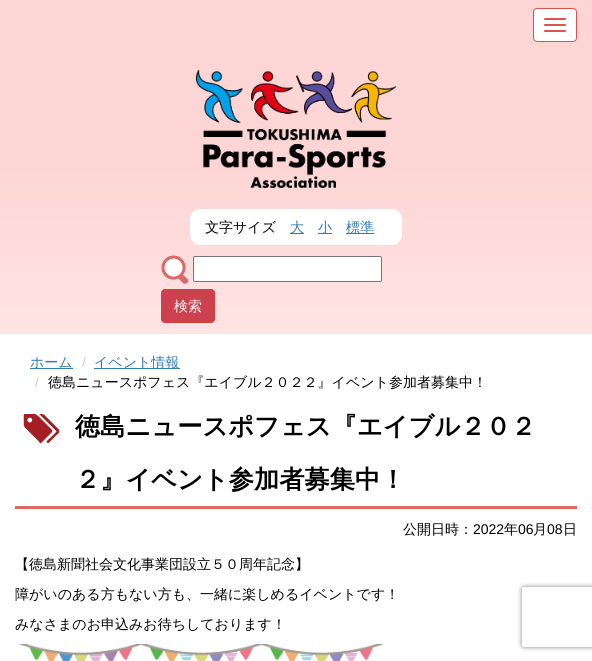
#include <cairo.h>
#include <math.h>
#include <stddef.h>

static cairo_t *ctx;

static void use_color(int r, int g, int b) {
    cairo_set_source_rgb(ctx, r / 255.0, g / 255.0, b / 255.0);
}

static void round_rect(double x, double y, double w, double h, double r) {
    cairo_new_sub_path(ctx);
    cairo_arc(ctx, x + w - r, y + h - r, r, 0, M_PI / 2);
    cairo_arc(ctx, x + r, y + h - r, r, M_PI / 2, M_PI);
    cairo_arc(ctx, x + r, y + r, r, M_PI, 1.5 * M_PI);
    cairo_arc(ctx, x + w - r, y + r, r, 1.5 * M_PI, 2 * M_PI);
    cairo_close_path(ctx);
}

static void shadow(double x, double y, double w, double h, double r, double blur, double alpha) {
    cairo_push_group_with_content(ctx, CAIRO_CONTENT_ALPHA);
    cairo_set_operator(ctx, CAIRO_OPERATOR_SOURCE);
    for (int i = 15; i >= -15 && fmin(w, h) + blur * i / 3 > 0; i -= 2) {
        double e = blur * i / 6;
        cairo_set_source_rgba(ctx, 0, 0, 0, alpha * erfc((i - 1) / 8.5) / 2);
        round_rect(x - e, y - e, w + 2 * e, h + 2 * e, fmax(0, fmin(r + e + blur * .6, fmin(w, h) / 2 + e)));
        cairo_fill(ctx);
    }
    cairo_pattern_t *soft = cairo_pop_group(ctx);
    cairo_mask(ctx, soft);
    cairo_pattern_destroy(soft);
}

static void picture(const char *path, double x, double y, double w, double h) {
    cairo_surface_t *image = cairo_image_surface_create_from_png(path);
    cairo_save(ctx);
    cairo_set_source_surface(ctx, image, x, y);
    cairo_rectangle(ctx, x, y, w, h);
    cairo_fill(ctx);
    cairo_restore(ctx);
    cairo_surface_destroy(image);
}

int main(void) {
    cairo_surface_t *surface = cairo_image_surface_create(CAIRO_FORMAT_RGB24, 592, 661);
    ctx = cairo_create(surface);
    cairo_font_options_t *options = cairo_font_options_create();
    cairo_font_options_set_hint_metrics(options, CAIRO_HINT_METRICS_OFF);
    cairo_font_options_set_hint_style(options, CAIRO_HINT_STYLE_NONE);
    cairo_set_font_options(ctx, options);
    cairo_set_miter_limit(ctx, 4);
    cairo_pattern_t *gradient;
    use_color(255, 255, 255);
    cairo_paint(ctx);
    gradient = cairo_pattern_create_linear(296, 0, 296, 334);
    cairo_pattern_add_color_stop_rgba(gradient, 0.5, 0.996, 0.835, 0.835, 1);
    cairo_pattern_add_color_stop_rgba(gradient, 1, 1, 0.894, 0.894, 1);
    cairo_set_source(ctx, gradient);
    cairo_pattern_destroy(gradient);
    cairo_rectangle(ctx, 0, 0, 592, 334);
    cairo_fill(ctx);
    use_color(255, 255, 255);
    round_rect(533.5, 8.5, 43, 33, 3.5);
    cairo_fill_preserve(ctx);
    use_color(217, 83, 79);
    cairo_set_line_width(ctx, 1);
    cairo_stroke(ctx);
    round_rect(544, 18, 22, 2, 1);
    cairo_fill(ctx);
    round_rect(544, 24, 22, 2, 1);
    cairo_fill(ctx);
    round_rect(544, 30, 22, 2, 1);
    cairo_fill(ctx);
    picture("img1.png", 196, 70, 200, 118);
    use_color(255, 255, 255);
    round_rect(190, 209, 212, 36, 10);
    cairo_fill(ctx);
    cairo_select_font_face(ctx, "WenQuanYi Zen Hei Medium", CAIRO_FONT_SLANT_NORMAL, CAIRO_FONT_WEIGHT_NORMAL);
    cairo_set_font_size(ctx, 14);
    use_color(0, 0, 0);
    cairo_move_to(ctx, 205, 232);
    cairo_show_text(ctx, "文字サイズ");
    use_color(51, 122, 183);
    cairo_rectangle(ctx, 290, 233, 14, 1);
    cairo_fill(ctx);
    cairo_move_to(ctx, 290, 232);
    cairo_show_text(ctx, "大");
    cairo_rectangle(ctx, 318, 233, 14, 1);
    cairo_fill(ctx);
    cairo_move_to(ctx, 318, 232);
    cairo_show_text(ctx, "小");
    cairo_rectangle(ctx, 346, 233, 28, 1);
    cairo_fill(ctx);
    cairo_move_to(ctx, 346, 232);
    cairo_show_text(ctx, "標準");
    picture("img2.png", 161, 255, 27, 29);
    use_color(255, 255, 255);
    round_rect(193.5, 256.5, 188, 25, 1.5);
    cairo_fill_preserve(ctx);
    use_color(118, 118, 118);
    cairo_stroke(ctx);
    use_color(204, 64, 79);
    round_rect(161.5, 289.5, 53, 33, 3.5);
    cairo_fill_preserve(ctx);
    use_color(212, 63, 58);
    cairo_stroke(ctx);
    use_color(255, 255, 255);
    cairo_move_to(ctx, 174, 311);
    cairo_show_text(ctx, "検索");
    use_color(51, 122, 183);
    cairo_rectangle(ctx, 30, 368, 43, 1);
    cairo_fill(ctx);
    cairo_move_to(ctx, 30, 367);
    cairo_show_text(ctx, "ホーム");
    cairo_select_font_face(ctx, "Liberation Sans", CAIRO_FONT_SLANT_NORMAL, CAIRO_FONT_WEIGHT_NORMAL);
    use_color(204, 204, 204);
    cairo_move_to(ctx, 82, 367);
    cairo_show_text(ctx, "/");
    use_color(51, 122, 183);
    cairo_rectangle(ctx, 94, 368, 86, 1);
    cairo_fill(ctx);
    cairo_select_font_face(ctx, "WenQuanYi Zen Hei Medium", CAIRO_FONT_SLANT_NORMAL, CAIRO_FONT_WEIGHT_NORMAL);
    cairo_move_to(ctx, 94, 367);
    cairo_show_text(ctx, "イベント情報");
    cairo_select_font_face(ctx, "Liberation Sans", CAIRO_FONT_SLANT_NORMAL, CAIRO_FONT_WEIGHT_NORMAL);
    use_color(204, 204, 204);
    cairo_move_to(ctx, 35, 387);
    cairo_show_text(ctx, "/");
    cairo_select_font_face(ctx, "WenQuanYi Zen Hei Medium", CAIRO_FONT_SLANT_NORMAL, CAIRO_FONT_WEIGHT_NORMAL);
    use_color(0, 0, 0);
    cairo_move_to(ctx, 48, 387);
    cairo_show_text(ctx, "徳島ニュースポフェス『エイブル２０２２』イベント参加者募集中！");
    picture("img3.png", 23, 414, 37, 30);
    use_color(221, 105, 103);
    cairo_rectangle(ctx, 15, 506, 562, 3);
    cairo_fill(ctx);
    cairo_select_font_face(ctx, "WenQuanYi Zen Hei", CAIRO_FONT_SLANT_NORMAL, CAIRO_FONT_WEIGHT_BOLD);
    cairo_set_font_size(ctx, 25.25);
    use_color(0, 0, 0);
    cairo_move_to(ctx, 75, 435);
    cairo_show_text(ctx, "徳島ニュースポフェス『エイブル２０２");
    cairo_move_to(ctx, 75, 488);
    cairo_show_text(ctx, "２』イベント参加者募集中！");
    cairo_select_font_face(ctx, "WenQuanYi Zen Hei Medium", CAIRO_FONT_SLANT_NORMAL, CAIRO_FONT_WEIGHT_NORMAL);
    cairo_set_font_size(ctx, 14);
    cairo_move_to(ctx, 403, 534);
    cairo_show_text(ctx, "公開日時：");
    cairo_select_font_face(ctx, "Liberation Sans", CAIRO_FONT_SLANT_NORMAL, CAIRO_FONT_WEIGHT_NORMAL);
    cairo_move_to(ctx, 473, 534);
    cairo_show_text(ctx, "2022");
    cairo_select_font_face(ctx, "WenQuanYi Zen Hei Medium", CAIRO_FONT_SLANT_NORMAL, CAIRO_FONT_WEIGHT_NORMAL);
    cairo_move_to(ctx, 504, 534);
    cairo_show_text(ctx, "年");
    cairo_select_font_face(ctx, "Liberation Sans", CAIRO_FONT_SLANT_NORMAL, CAIRO_FONT_WEIGHT_NORMAL);
    cairo_move_to(ctx, 518, 534);
    cairo_show_text(ctx, "06");
    cairo_select_font_face(ctx, "WenQuanYi Zen Hei Medium", CAIRO_FONT_SLANT_NORMAL, CAIRO_FONT_WEIGHT_NORMAL);
    cairo_move_to(ctx, 533, 534);
    cairo_show_text(ctx, "月");
    cairo_select_font_face(ctx, "Liberation Sans", CAIRO_FONT_SLANT_NORMAL, CAIRO_FONT_WEIGHT_NORMAL);
    cairo_move_to(ctx, 547, 534);
    cairo_show_text(ctx, "08");
    cairo_select_font_face(ctx, "WenQuanYi Zen Hei Medium", CAIRO_FONT_SLANT_NORMAL, CAIRO_FONT_WEIGHT_NORMAL);
    cairo_move_to(ctx, 563, 534);
    cairo_show_text(ctx, "日");
    cairo_move_to(ctx, 15, 569);
    cairo_show_text(ctx, "【徳島新聞社会文化事業団設立５０周年記念】");
    cairo_move_to(ctx, 15, 599);
    cairo_show_text(ctx, "障がいのある方もない方も、一緒に楽しめるイベントです！");
    cairo_move_to(ctx, 15, 629);
    cairo_show_text(ctx, "みなさまのお申込みお待ちしております！");
    picture("img4.png", 18, 644, 366, 17);
    cairo_save(ctx);
    cairo_set_fill_rule(ctx, CAIRO_FILL_RULE_EVEN_ODD);
    cairo_new_path(ctx);
    cairo_move_to(ctx, 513, 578);
    cairo_line_to(ctx, 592, 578);
    cairo_line_to(ctx, 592, 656);
    cairo_line_to(ctx, 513, 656);
    cairo_close_path(ctx);
    cairo_move_to(ctx, 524, 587);
    cairo_line_to(ctx, 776, 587);
    cairo_curve_to(ctx, 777, 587, 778, 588, 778, 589);
    cairo_line_to(ctx, 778, 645);
    cairo_curve_to(ctx, 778, 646, 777, 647, 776, 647);
    cairo_line_to(ctx, 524, 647);
    cairo_curve_to(ctx, 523, 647, 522, 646, 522, 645);
    cairo_line_to(ctx, 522, 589);
    cairo_curve_to(ctx, 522, 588, 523, 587, 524, 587);
    cairo_close_path(ctx);
    cairo_clip(ctx);
    use_color(128, 128, 128);
    shadow(522, 587, 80, 60, 2, 2.5, 1);
    cairo_restore(ctx);
    cairo_surface_write_to_png(surface, "result.png");
    cairo_font_options_destroy(options);
    cairo_destroy(ctx);
    cairo_surface_destroy(surface);
    return 0;
}
